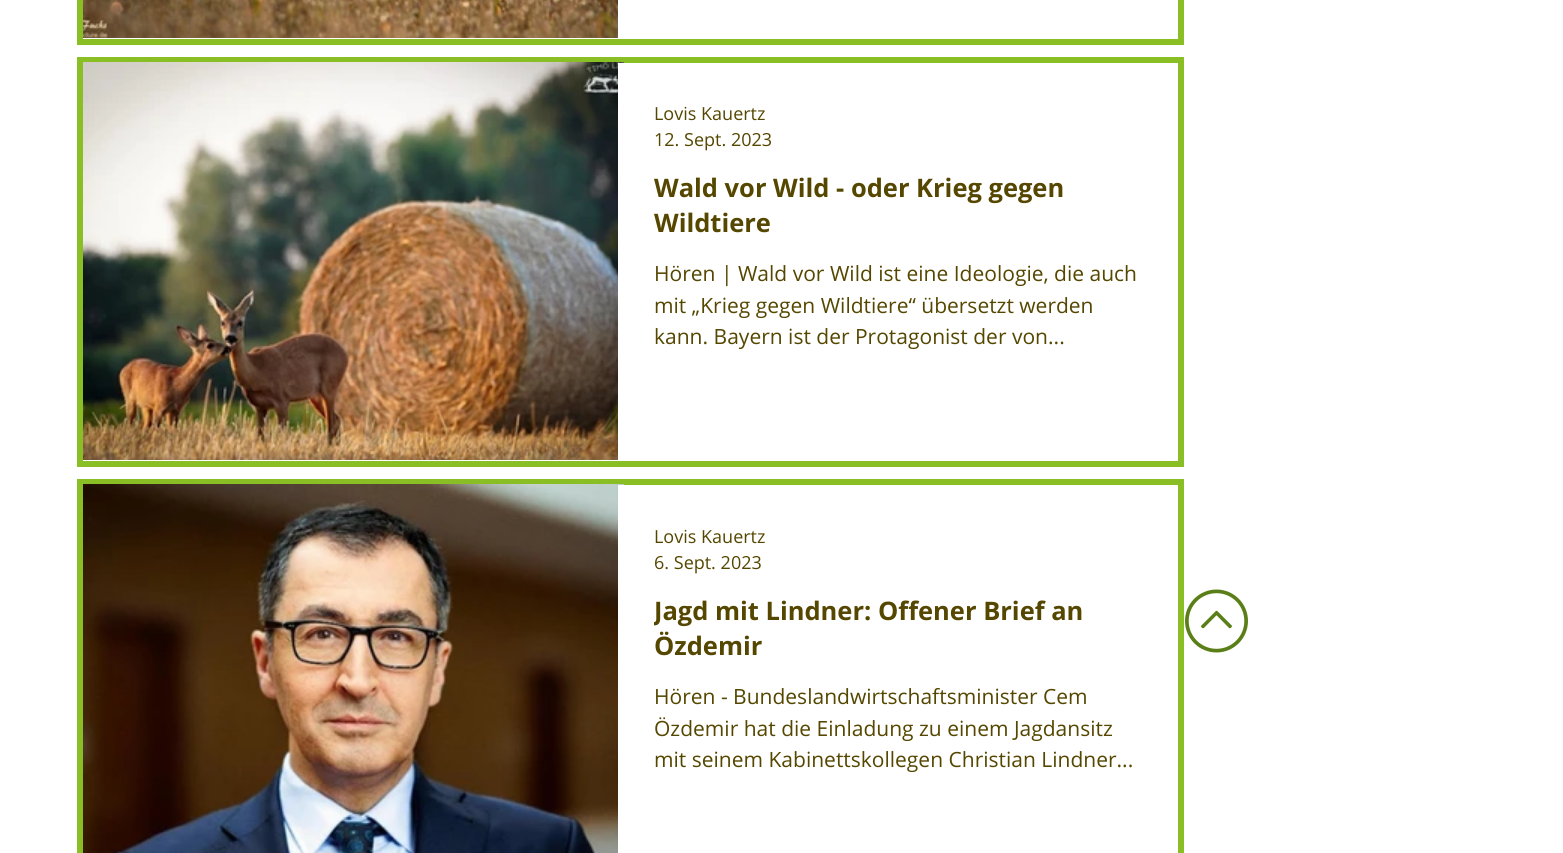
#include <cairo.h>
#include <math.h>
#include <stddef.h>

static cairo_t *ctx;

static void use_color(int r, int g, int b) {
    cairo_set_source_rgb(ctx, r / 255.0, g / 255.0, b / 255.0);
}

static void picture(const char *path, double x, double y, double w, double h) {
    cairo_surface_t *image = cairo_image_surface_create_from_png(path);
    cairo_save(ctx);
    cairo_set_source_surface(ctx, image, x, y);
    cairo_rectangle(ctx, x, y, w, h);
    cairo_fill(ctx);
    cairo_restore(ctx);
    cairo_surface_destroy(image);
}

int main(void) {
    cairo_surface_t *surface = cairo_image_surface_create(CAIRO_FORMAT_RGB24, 1563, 853);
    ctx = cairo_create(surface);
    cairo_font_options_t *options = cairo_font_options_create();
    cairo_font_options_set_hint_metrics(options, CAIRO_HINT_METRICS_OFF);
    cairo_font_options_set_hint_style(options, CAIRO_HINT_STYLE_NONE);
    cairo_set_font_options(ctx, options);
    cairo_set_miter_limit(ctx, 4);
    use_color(255, 255, 255);
    cairo_paint(ctx);
    cairo_rectangle(ctx, 80, -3, 1101, 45);
    use_color(137, 191, 36);
    cairo_set_line_width(ctx, 6);
    cairo_stroke(ctx);
    picture("img1.png", 83, 0, 535, 38);
    cairo_rectangle(ctx, 80, 60, 1101, 404);
    cairo_stroke(ctx);
    picture("img2.png", 83, 62, 541, 398);
    use_color(255, 255, 255);
    cairo_rectangle(ctx, 618, 63, 6, 397);
    cairo_fill(ctx);
    cairo_select_font_face(ctx, "Open Sans", CAIRO_FONT_SLANT_NORMAL, CAIRO_FONT_WEIGHT_NORMAL);
    cairo_set_font_size(ctx, 18);
    use_color(85, 71, 0);
    cairo_move_to(ctx, 654, 120);
    cairo_show_text(ctx, "Lovis Kauertz");
    cairo_move_to(ctx, 654, 146);
    cairo_show_text(ctx, "12. Sept. 2023");
    cairo_select_font_face(ctx, "Open Sans", CAIRO_FONT_SLANT_NORMAL, CAIRO_FONT_WEIGHT_BOLD);
    cairo_set_font_size(ctx, 25.5);
    cairo_move_to(ctx, 654, 197);
    cairo_show_text(ctx, "Wald vor Wild - oder Krieg gegen");
    cairo_move_to(ctx, 654, 232);
    cairo_show_text(ctx, "Wildtiere");
    cairo_select_font_face(ctx, "Open Sans", CAIRO_FONT_SLANT_NORMAL, CAIRO_FONT_WEIGHT_NORMAL);
    cairo_set_font_size(ctx, 21);
    cairo_move_to(ctx, 654, 281);
    cairo_show_text(ctx, "Hören | Wald vor Wild ist eine Ideologie, die auch");
    cairo_move_to(ctx, 654, 313);
    cairo_show_text(ctx, "mit „Krieg gegen Wildtiere“ übersetzt werden");
    cairo_move_to(ctx, 654, 344);
    cairo_show_text(ctx, "kann. Bayern ist der Protagonist der von...");
    cairo_rectangle(ctx, 80, 482, 1101, 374);
    use_color(137, 191, 36);
    cairo_stroke(ctx);
    picture("img3.png", 83, 484, 541, 369);
    use_color(255, 255, 255);
    cairo_rectangle(ctx, 618, 485, 6, 368);
    cairo_fill(ctx);
    cairo_set_font_size(ctx, 18);
    use_color(85, 71, 0);
    cairo_move_to(ctx, 654, 543);
    cairo_show_text(ctx, "Lovis Kauertz");
    cairo_move_to(ctx, 654, 569);
    cairo_show_text(ctx, "6. Sept. 2023");
    cairo_save(ctx);
    cairo_rectangle(ctx, 654, 593, 488, 69);
    cairo_clip(ctx);
    cairo_select_font_face(ctx, "Open Sans", CAIRO_FONT_SLANT_NORMAL, CAIRO_FONT_WEIGHT_BOLD);
    cairo_set_font_size(ctx, 25.5);
    cairo_move_to(ctx, 654, 620);
    cairo_show_text(ctx, "Jagd mit Lindner:");
    cairo_restore(ctx);
    cairo_select_font_face(ctx, "Open Sans", CAIRO_FONT_SLANT_NORMAL, CAIRO_FONT_WEIGHT_BOLD);
    cairo_set_font_size(ctx, 25.5);
    cairo_move_to(ctx, 878, 620);
    cairo_show_text(ctx, "Offener Brief an");
    cairo_move_to(ctx, 654, 655);
    cairo_show_text(ctx, "Özdemir");
    cairo_select_font_face(ctx, "Open Sans", CAIRO_FONT_SLANT_NORMAL, CAIRO_FONT_WEIGHT_NORMAL);
    cairo_set_font_size(ctx, 21);
    cairo_move_to(ctx, 654, 704);
    cairo_show_text(ctx, "Hören - Bundeslandwirtschaftsminister Cem");
    cairo_move_to(ctx, 654, 736);
    cairo_show_text(ctx, "Özdemir hat die Einladung zu einem Jagdansitz");
    cairo_move_to(ctx, 654, 767);
    cairo_show_text(ctx, "mit seinem Kabinettskollegen Christian Lindner...");
    picture("img4.png", 1185, 589, 63, 64);
    cairo_surface_write_to_png(surface, "result.png");
    cairo_font_options_destroy(options);
    cairo_destroy(ctx);
    cairo_surface_destroy(surface);
    return 0;
}
